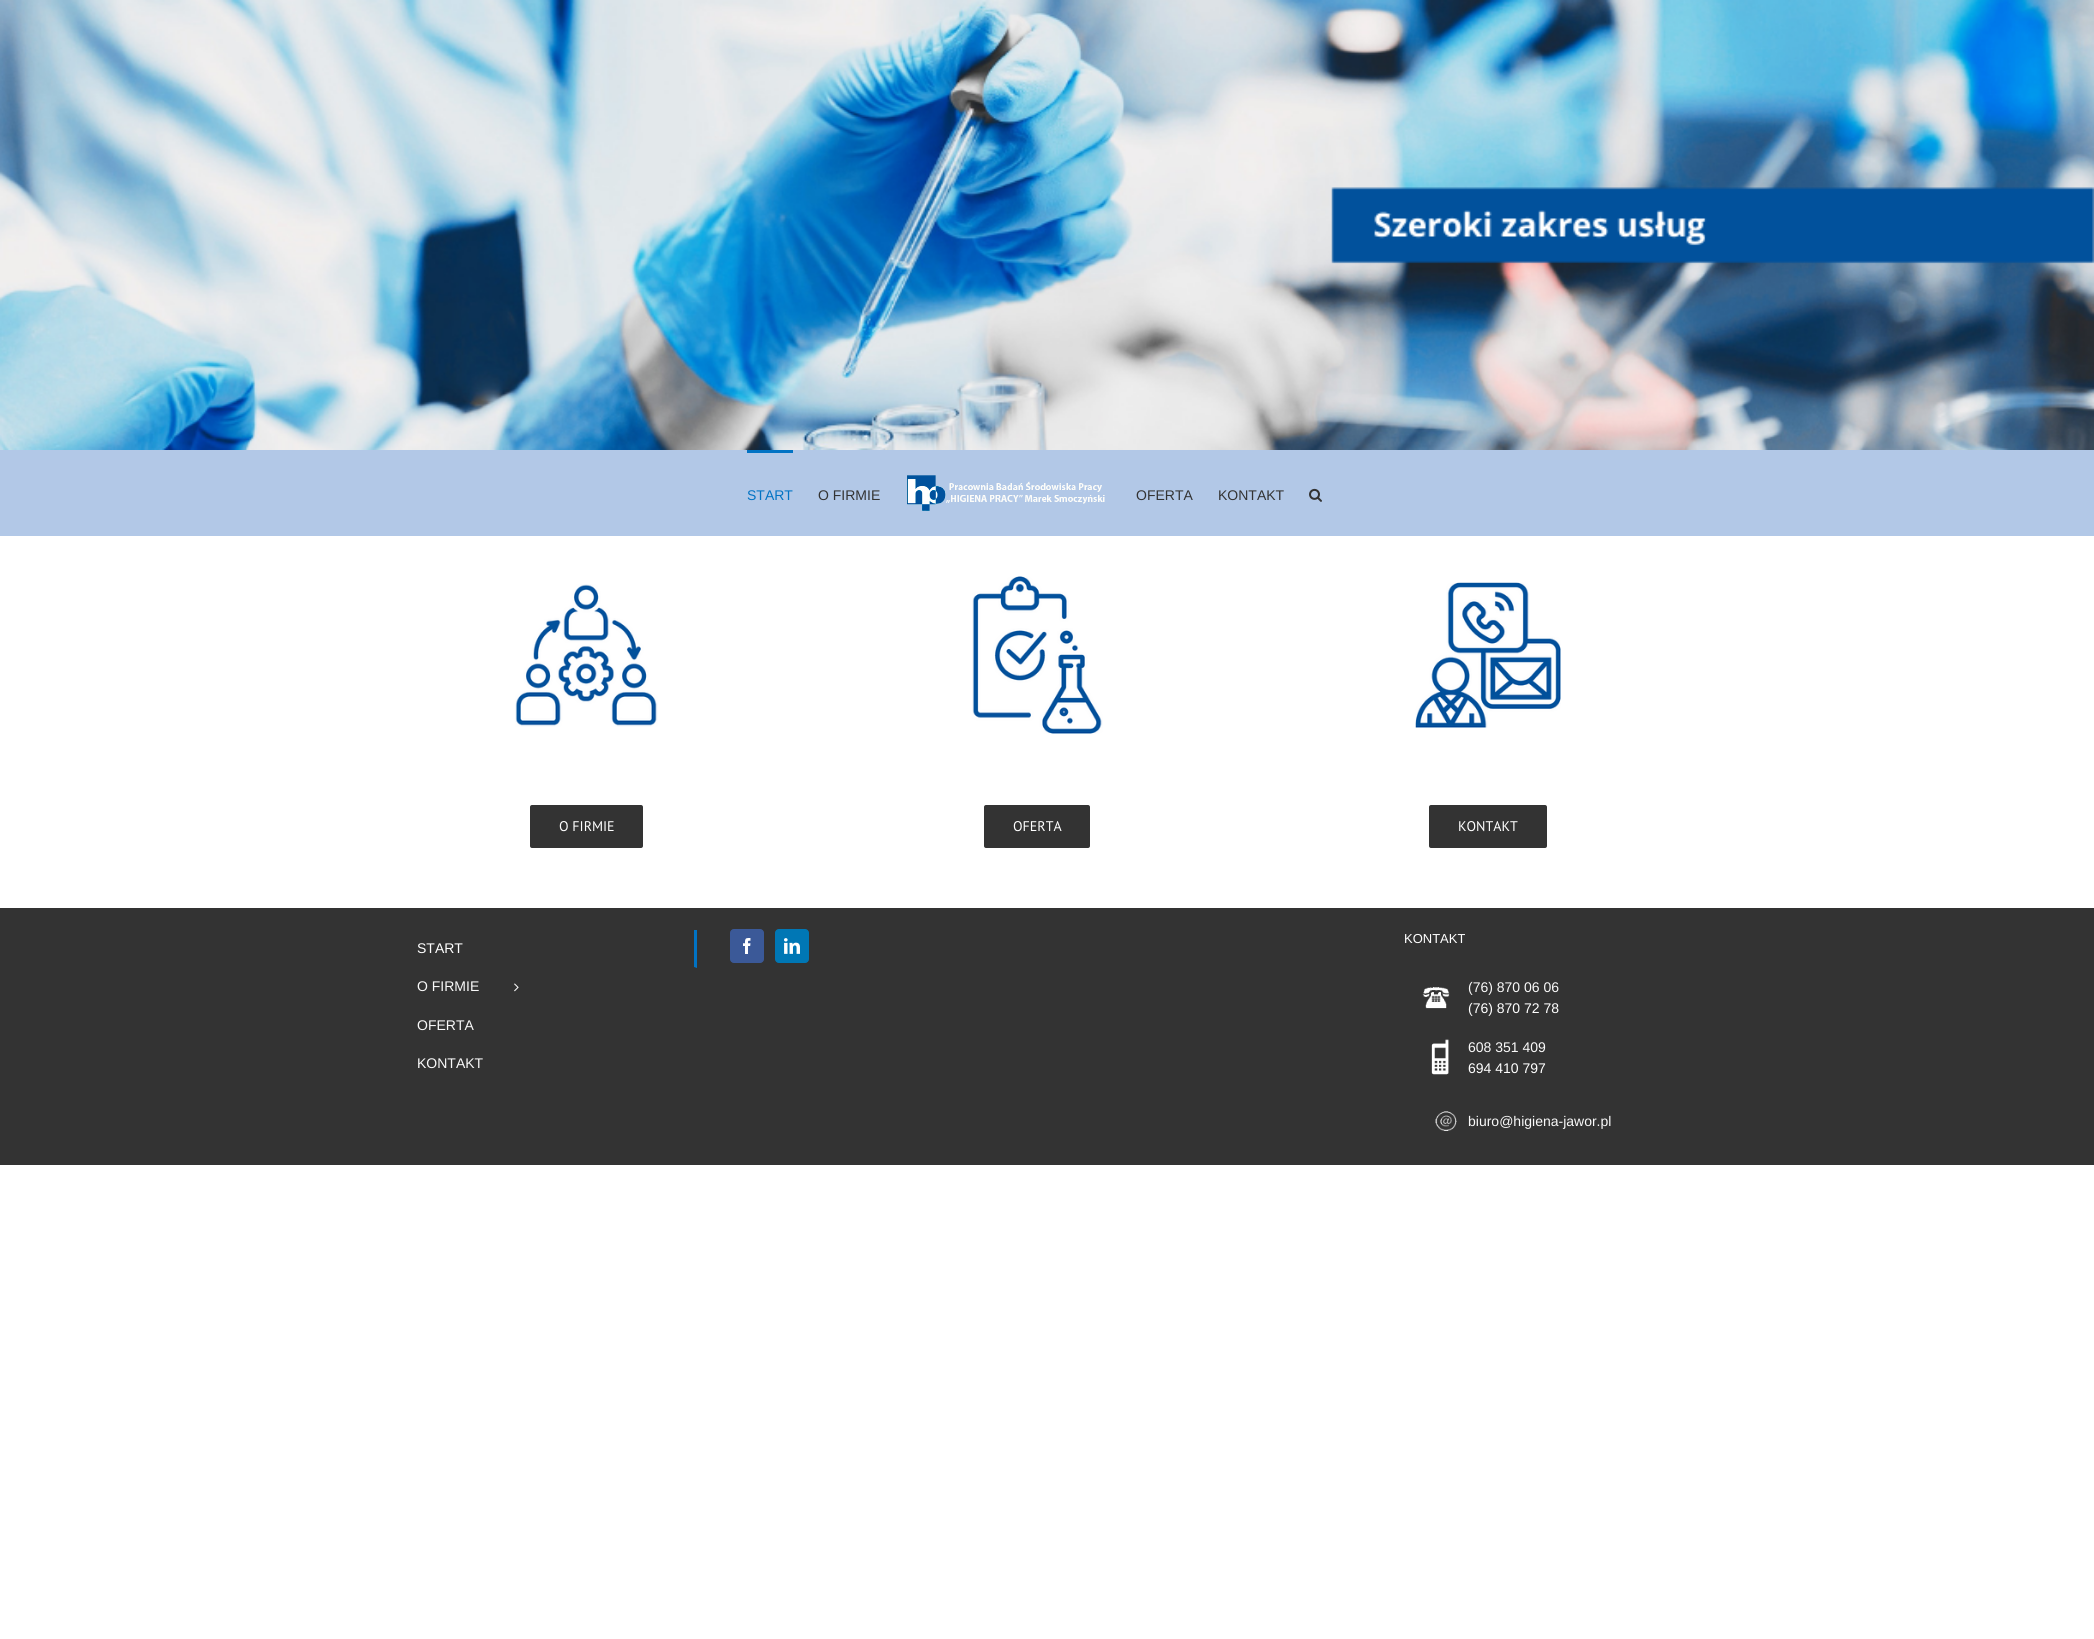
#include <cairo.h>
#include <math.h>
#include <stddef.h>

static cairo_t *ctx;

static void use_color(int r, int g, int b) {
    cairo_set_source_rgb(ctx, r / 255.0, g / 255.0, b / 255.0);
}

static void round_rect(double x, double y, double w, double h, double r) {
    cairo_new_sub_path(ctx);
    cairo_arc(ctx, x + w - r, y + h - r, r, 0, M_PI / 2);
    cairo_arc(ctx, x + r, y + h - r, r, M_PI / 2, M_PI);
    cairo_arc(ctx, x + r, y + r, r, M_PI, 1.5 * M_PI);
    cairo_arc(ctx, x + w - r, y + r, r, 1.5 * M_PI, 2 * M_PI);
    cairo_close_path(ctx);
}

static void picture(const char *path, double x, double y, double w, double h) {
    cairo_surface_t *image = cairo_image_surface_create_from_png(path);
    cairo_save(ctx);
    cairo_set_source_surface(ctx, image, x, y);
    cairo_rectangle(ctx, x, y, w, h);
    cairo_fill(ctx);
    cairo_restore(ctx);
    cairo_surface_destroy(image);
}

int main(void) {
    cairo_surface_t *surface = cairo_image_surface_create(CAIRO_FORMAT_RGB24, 2094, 1639);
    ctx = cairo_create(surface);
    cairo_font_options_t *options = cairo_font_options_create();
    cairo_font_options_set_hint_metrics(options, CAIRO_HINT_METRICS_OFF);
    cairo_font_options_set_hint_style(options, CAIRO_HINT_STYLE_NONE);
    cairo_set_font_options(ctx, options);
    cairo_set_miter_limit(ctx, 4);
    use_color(255, 255, 255);
    cairo_paint(ctx);
    picture("img1.png", 0, 0, 2094, 450);
    use_color(178, 200, 231);
    cairo_rectangle(ctx, 0, 450, 2094, 86);
    cairo_fill(ctx);
    use_color(1, 115, 196);
    cairo_rectangle(ctx, 747, 450, 46, 3);
    cairo_fill(ctx);
    cairo_select_font_face(ctx, "Liberation Sans", CAIRO_FONT_SLANT_NORMAL, CAIRO_FONT_WEIGHT_NORMAL);
    cairo_set_font_size(ctx, 14);
    cairo_move_to(ctx, 747, 500);
    cairo_show_text(ctx, "START");
    use_color(51, 51, 51);
    cairo_move_to(ctx, 818, 500);
    cairo_show_text(ctx, "O FIRMIE");
    picture("img2.png", 907, 475, 198, 36);
    cairo_move_to(ctx, 1136, 500);
    cairo_show_text(ctx, "OFERTA");
    cairo_move_to(ctx, 1218, 500);
    cairo_show_text(ctx, "KONTAKT");
    picture("img3.png", 1309, 488, 13, 14);
    picture("img4.png", 515, 584, 143, 143);
    round_rect(530, 805, 113, 43, 2);
    cairo_fill(ctx);
    cairo_select_font_face(ctx, "PT Sans", CAIRO_FONT_SLANT_NORMAL, CAIRO_FONT_WEIGHT_NORMAL);
    use_color(255, 255, 255);
    cairo_move_to(ctx, 559, 831);
    cairo_show_text(ctx, "O FIRMIE");
    picture("img5.png", 972, 576, 131, 158);
    use_color(51, 51, 51);
    round_rect(984, 805, 106, 43, 2);
    cairo_fill(ctx);
    use_color(255, 255, 255);
    cairo_move_to(ctx, 1013, 831);
    cairo_show_text(ctx, "OFERTA");
    picture("img6.png", 1415, 582, 146, 146);
    use_color(51, 51, 51);
    round_rect(1429, 805, 118, 43, 2);
    cairo_fill(ctx);
    use_color(255, 255, 255);
    cairo_move_to(ctx, 1458, 831);
    cairo_show_text(ctx, "KONTAKT");
    use_color(51, 51, 51);
    cairo_rectangle(ctx, 0, 908, 2094, 257);
    cairo_fill(ctx);
    use_color(1, 115, 196);
    cairo_new_path(ctx);
    cairo_move_to(ctx, 697, 930);
    cairo_line_to(ctx, 697, 968);
    cairo_line_to(ctx, 694, 967);
    cairo_line_to(ctx, 694, 930);
    cairo_close_path(ctx);
    cairo_fill(ctx);
    cairo_select_font_face(ctx, "Liberation Sans", CAIRO_FONT_SLANT_NORMAL, CAIRO_FONT_WEIGHT_NORMAL);
    use_color(255, 255, 255);
    cairo_move_to(ctx, 417, 953);
    cairo_show_text(ctx, "START");
    use_color(249, 249, 249);
    cairo_move_to(ctx, 417, 991);
    cairo_show_text(ctx, "O FIRMIE");
    picture("img7.png", 514, 983, 5, 9);
    cairo_move_to(ctx, 417, 1030);
    cairo_show_text(ctx, "OFERTA");
    cairo_move_to(ctx, 417, 1068);
    cairo_show_text(ctx, "KONTAKT");
    use_color(59, 89, 152);
    round_rect(730.5, 929.5, 33, 33, 3.5);
    cairo_fill_preserve(ctx);
    cairo_set_line_width(ctx, 1);
    cairo_stroke(ctx);
    picture("img8.png", 743, 938, 8, 16);
    use_color(0, 119, 181);
    round_rect(775.5, 929.5, 33, 33, 3.5);
    cairo_fill_preserve(ctx);
    cairo_stroke(ctx);
    picture("img9.png", 784, 938, 16, 16);
    cairo_set_font_size(ctx, 13);
    use_color(255, 255, 255);
    cairo_move_to(ctx, 1404, 943);
    cairo_show_text(ctx, "KONTAKT");
    picture("img10.png", 1422, 987, 28, 22);
    cairo_set_font_size(ctx, 14);
    use_color(249, 249, 249);
    cairo_move_to(ctx, 1468, 992);
    cairo_show_text(ctx, "(76) 870 06 06");
    use_color(255, 255, 255);
    cairo_move_to(ctx, 1468, 1013);
    cairo_show_text(ctx, "(76) 870 72 78");
    picture("img11.png", 1431, 1039, 18, 36);
    use_color(249, 249, 249);
    cairo_move_to(ctx, 1468, 1052);
    cairo_show_text(ctx, "608 351 409");
    use_color(255, 255, 255);
    cairo_move_to(ctx, 1468, 1073);
    cairo_show_text(ctx, "694 410 797");
    picture("img12.png", 1435, 1111, 22, 20);
    use_color(249, 249, 249);
    cairo_move_to(ctx, 1468, 1126);
    cairo_show_text(ctx, "biuro@higiena-jawor.pl");
    cairo_surface_write_to_png(surface, "result.png");
    cairo_font_options_destroy(options);
    cairo_destroy(ctx);
    cairo_surface_destroy(surface);
    return 0;
}
